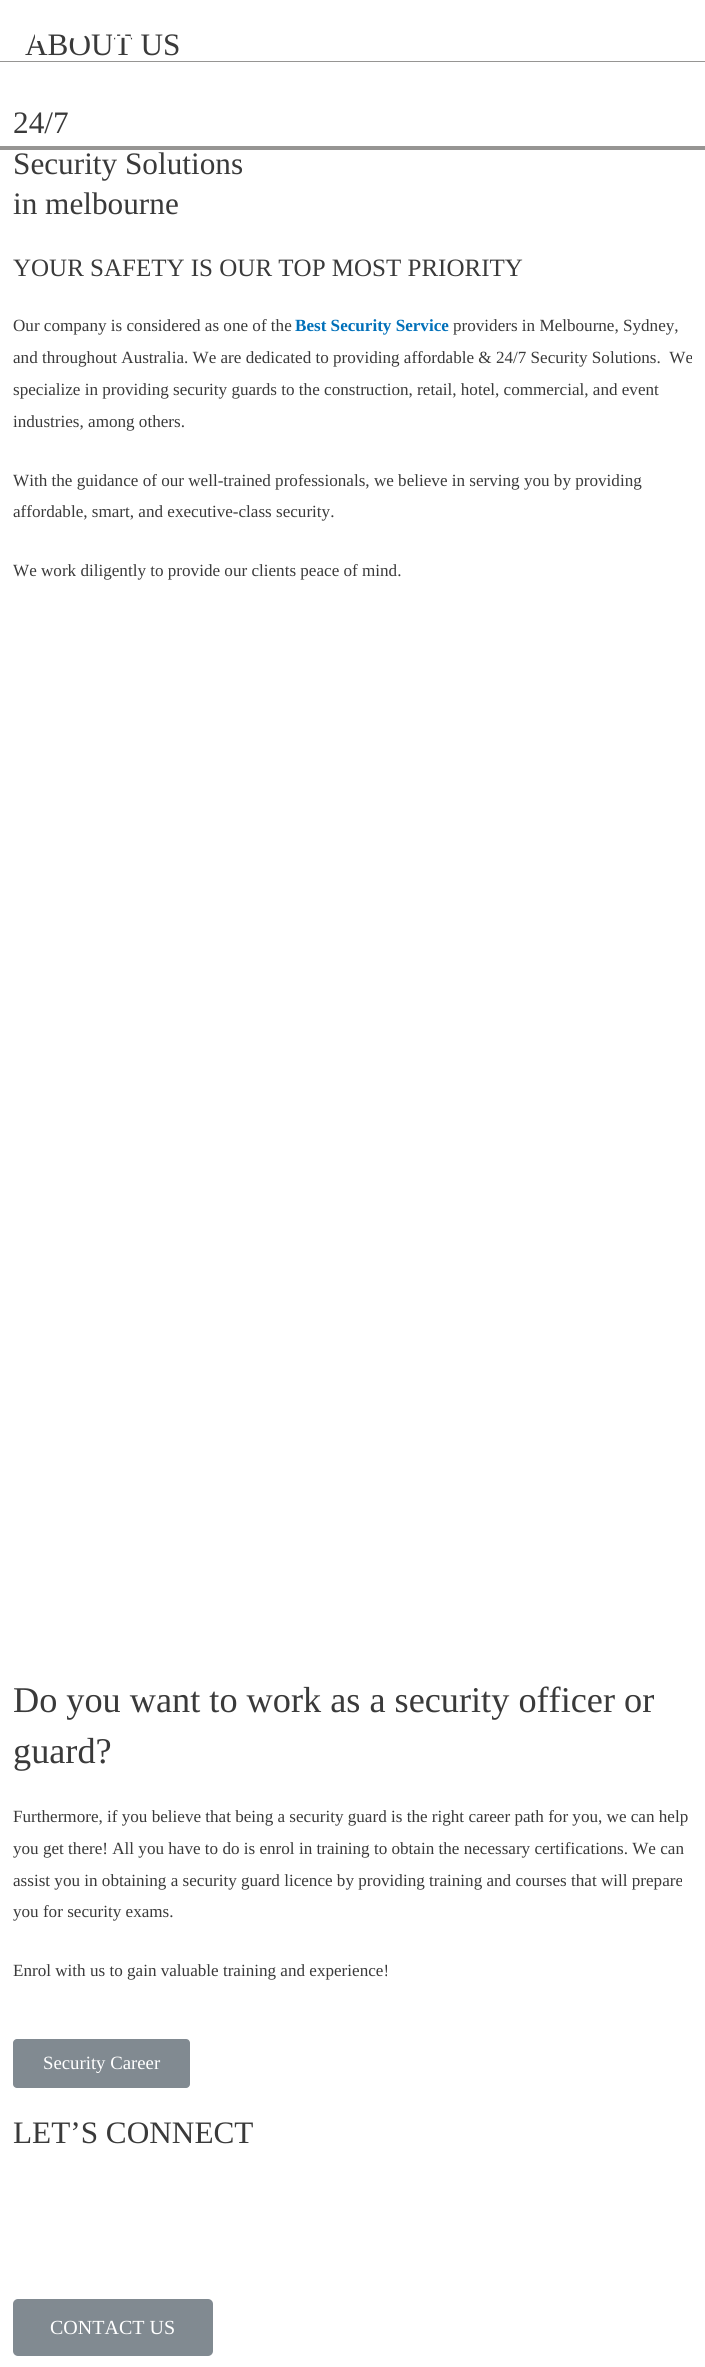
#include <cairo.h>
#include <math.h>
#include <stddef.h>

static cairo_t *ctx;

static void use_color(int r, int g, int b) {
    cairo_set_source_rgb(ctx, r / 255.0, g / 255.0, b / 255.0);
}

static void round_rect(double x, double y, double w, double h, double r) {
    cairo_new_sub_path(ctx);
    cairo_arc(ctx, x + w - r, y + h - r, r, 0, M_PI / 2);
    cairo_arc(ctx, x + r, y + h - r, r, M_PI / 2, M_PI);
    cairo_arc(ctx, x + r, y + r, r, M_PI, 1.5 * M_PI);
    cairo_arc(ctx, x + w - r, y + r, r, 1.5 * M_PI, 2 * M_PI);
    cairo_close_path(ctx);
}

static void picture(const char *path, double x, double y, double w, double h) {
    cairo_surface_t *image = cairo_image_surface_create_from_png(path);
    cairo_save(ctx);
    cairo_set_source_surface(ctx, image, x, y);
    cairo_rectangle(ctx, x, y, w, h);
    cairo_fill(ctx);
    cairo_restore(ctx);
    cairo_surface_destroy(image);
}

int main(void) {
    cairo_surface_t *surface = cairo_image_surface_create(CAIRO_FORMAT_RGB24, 705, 2367);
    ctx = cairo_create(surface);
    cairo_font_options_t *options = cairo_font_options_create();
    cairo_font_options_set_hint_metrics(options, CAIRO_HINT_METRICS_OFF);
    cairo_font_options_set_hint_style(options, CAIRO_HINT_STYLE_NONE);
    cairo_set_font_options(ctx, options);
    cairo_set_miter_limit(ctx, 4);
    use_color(255, 255, 255);
    cairo_paint(ctx);
    use_color(150, 149, 147);
    cairo_rectangle(ctx, 0, 61, 705, 1);
    cairo_fill(ctx);
    cairo_select_font_face(ctx, "Liberation Serif", CAIRO_FONT_SLANT_NORMAL, CAIRO_FONT_WEIGHT_NORMAL);
    cairo_set_font_size(ctx, 31.25);
    use_color(58, 58, 58);
    cairo_move_to(ctx, 25, 55);
    cairo_show_text(ctx, "ABOUT US");
    use_color(255, 255, 255);
    cairo_rectangle(ctx, 35, 34, 5, 7);
    cairo_fill(ctx);
    picture("img1.png", 71, 34, 15, 5);
    picture("img2.png", 112, 34, 21, 4);
    use_color(150, 149, 147);
    cairo_rectangle(ctx, 0, 146, 705, 4);
    cairo_fill(ctx);
    use_color(58, 58, 58);
    cairo_move_to(ctx, 13, 133);
    cairo_show_text(ctx, "24/7");
    cairo_move_to(ctx, 13, 174);
    cairo_show_text(ctx, "Security Solutions");
    cairo_move_to(ctx, 13, 214);
    cairo_show_text(ctx, "in melbourne");
    cairo_set_font_size(ctx, 25);
    cairo_move_to(ctx, 13, 276);
    cairo_show_text(ctx, "YOUR SAFETY IS OUR TOP MOST PRIORITY");
    cairo_set_font_size(ctx, 17.1);
    cairo_move_to(ctx, 13, 331);
    cairo_show_text(ctx, "Our company is considered as one of the");
    cairo_select_font_face(ctx, "Liberation Serif", CAIRO_FONT_SLANT_NORMAL, CAIRO_FONT_WEIGHT_BOLD);
    use_color(1, 112, 185);
    cairo_move_to(ctx, 295, 331);
    cairo_show_text(ctx, "Best Security Service");
    cairo_select_font_face(ctx, "Liberation Serif", CAIRO_FONT_SLANT_NORMAL, CAIRO_FONT_WEIGHT_NORMAL);
    use_color(58, 58, 58);
    cairo_move_to(ctx, 453, 331);
    cairo_show_text(ctx, "providers in Melbourne, Sydney,");
    cairo_move_to(ctx, 13, 363);
    cairo_show_text(ctx, "and throughout Australia. We are dedicated to providing affordable & 24/7 Security Solutions.  We");
    cairo_move_to(ctx, 13, 395);
    cairo_show_text(ctx, "specialize in providing security guards to the construction, retail, hotel, commercial, and event");
    cairo_move_to(ctx, 13, 427);
    cairo_show_text(ctx, "industries, among others.");
    cairo_move_to(ctx, 13, 486);
    cairo_show_text(ctx, "With the guidance of our well-trained professionals, we believe in serving you by providing");
    cairo_move_to(ctx, 13, 517);
    cairo_show_text(ctx, "affordable, smart, and executive-class security.");
    cairo_move_to(ctx, 13, 576);
    cairo_show_text(ctx, "We work diligently to provide our clients peace of mind.");
    cairo_set_font_size(ctx, 36.25);
    cairo_move_to(ctx, 13, 1712);
    cairo_show_text(ctx, "Do you want to work as a security officer or");
    cairo_move_to(ctx, 13, 1763);
    cairo_show_text(ctx, "guard?");
    cairo_set_font_size(ctx, 17.1);
    cairo_move_to(ctx, 13, 1822);
    cairo_show_text(ctx, "Furthermore, if you believe that being a security guard is the right career path for you, we can help");
    cairo_move_to(ctx, 13, 1854);
    cairo_show_text(ctx, "you get there! All you have to do is enrol in training to obtain the necessary certifications. We can");
    cairo_move_to(ctx, 13, 1886);
    cairo_show_text(ctx, "assist you in obtaining a security guard licence by providing training and courses that will prepare");
    cairo_move_to(ctx, 13, 1917);
    cairo_show_text(ctx, "you for security exams.");
    cairo_move_to(ctx, 13, 1976);
    cairo_show_text(ctx, "Enrol with us to gain valuable training and experience!");
    use_color(129, 138, 145);
    round_rect(13, 2039, 177, 49, 4);
    cairo_fill(ctx);
    cairo_set_font_size(ctx, 18.75);
    use_color(255, 255, 255);
    cairo_move_to(ctx, 43, 2069);
    cairo_show_text(ctx, "Security Career");
    cairo_set_font_size(ctx, 31.25);
    use_color(58, 58, 58);
    cairo_move_to(ctx, 13, 2143);
    cairo_show_text(ctx, "LET’S CONNECT");
    use_color(129, 138, 145);
    round_rect(13, 2299, 200, 57, 5);
    cairo_fill(ctx);
    cairo_set_font_size(ctx, 20);
    use_color(255, 255, 255);
    cairo_move_to(ctx, 50, 2334);
    cairo_show_text(ctx, "CONTACT US");
    cairo_surface_write_to_png(surface, "result.png");
    cairo_font_options_destroy(options);
    cairo_destroy(ctx);
    cairo_surface_destroy(surface);
    return 0;
}
